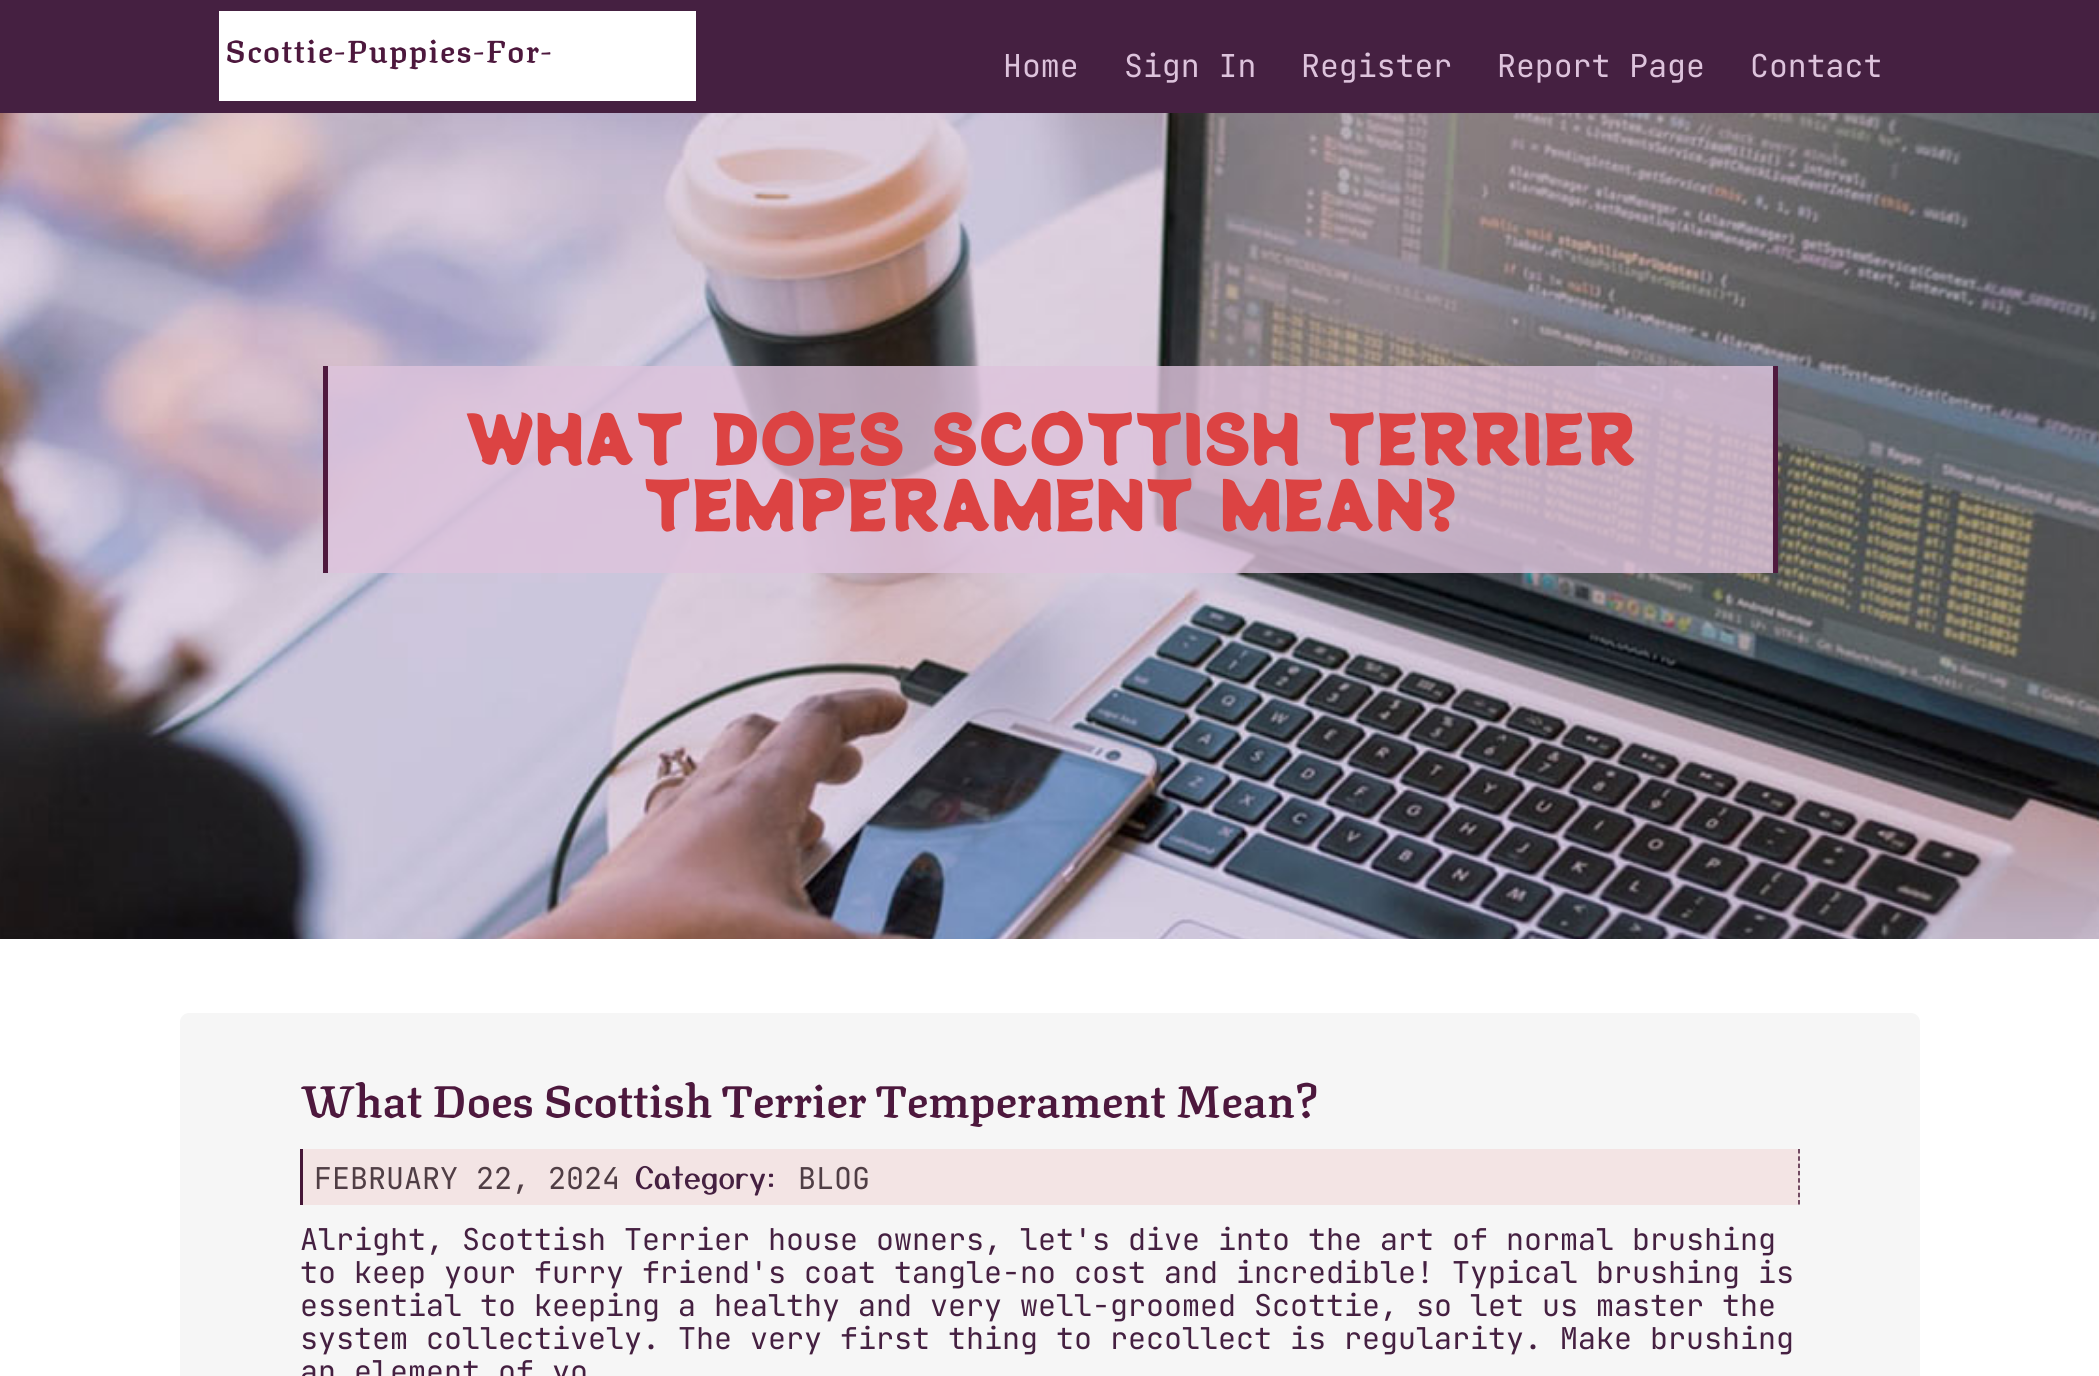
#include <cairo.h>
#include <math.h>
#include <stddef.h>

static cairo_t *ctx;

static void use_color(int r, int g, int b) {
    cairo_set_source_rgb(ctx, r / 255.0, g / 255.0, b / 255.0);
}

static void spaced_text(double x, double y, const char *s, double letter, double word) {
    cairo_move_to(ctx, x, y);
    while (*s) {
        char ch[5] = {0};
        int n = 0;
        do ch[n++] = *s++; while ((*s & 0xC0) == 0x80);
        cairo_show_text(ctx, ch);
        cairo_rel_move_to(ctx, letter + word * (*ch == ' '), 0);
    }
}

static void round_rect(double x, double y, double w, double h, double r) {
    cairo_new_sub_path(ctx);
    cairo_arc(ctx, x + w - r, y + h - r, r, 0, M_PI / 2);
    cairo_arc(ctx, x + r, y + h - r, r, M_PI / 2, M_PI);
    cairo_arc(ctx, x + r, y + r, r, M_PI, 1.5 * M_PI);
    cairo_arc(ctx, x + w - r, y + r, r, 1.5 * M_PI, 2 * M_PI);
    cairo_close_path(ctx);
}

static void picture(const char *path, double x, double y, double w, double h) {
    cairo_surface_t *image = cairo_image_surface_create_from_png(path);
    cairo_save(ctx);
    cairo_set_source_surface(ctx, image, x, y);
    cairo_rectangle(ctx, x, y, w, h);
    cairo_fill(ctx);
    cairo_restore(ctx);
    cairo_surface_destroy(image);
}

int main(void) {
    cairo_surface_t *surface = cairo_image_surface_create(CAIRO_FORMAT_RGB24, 2099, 1376);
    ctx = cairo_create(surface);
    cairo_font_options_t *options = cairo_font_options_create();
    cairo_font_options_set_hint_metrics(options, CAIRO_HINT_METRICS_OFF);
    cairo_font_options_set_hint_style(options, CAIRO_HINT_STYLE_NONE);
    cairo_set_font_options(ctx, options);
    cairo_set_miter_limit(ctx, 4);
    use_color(255, 255, 255);
    cairo_paint(ctx);
    use_color(69, 32, 65);
    cairo_rectangle(ctx, 0, 0, 2099, 113);
    cairo_fill(ctx);
    use_color(255, 255, 255);
    cairo_rectangle(ctx, 219, 11, 477, 90);
    cairo_fill(ctx);
    cairo_select_font_face(ctx, "Texturina SemiBold", CAIRO_FONT_SLANT_NORMAL, CAIRO_FONT_WEIGHT_NORMAL);
    cairo_set_font_size(ctx, 31.5);
    use_color(77, 24, 61);
    spaced_text(225, 63, "Scottie-Puppies-For-", 1.5, 0);
    cairo_select_font_face(ctx, "JetBrains Mono", CAIRO_FONT_SLANT_NORMAL, CAIRO_FONT_WEIGHT_NORMAL);
    use_color(221, 195, 220);
    cairo_move_to(ctx, 1003, 77);
    cairo_show_text(ctx, "Home");
    cairo_move_to(ctx, 1124, 77);
    cairo_show_text(ctx, "Sign In");
    cairo_move_to(ctx, 1301, 77);
    cairo_show_text(ctx, "Register");
    cairo_move_to(ctx, 1497, 77);
    cairo_show_text(ctx, "Report Page");
    cairo_move_to(ctx, 1750, 77);
    cairo_show_text(ctx, "Contact");
    picture("img1.png", 0, 113, 2099, 826);
    cairo_set_source_rgba(ctx, 0.867, 0.765, 0.863, 0.8);
    cairo_rectangle(ctx, 328, 366, 1445, 207);
    cairo_fill(ctx);
    use_color(79, 25, 62);
    cairo_rectangle(ctx, 1773, 366, 5, 207);
    cairo_fill(ctx);
    cairo_rectangle(ctx, 323, 366, 5, 207);
    cairo_fill(ctx);
    cairo_select_font_face(ctx, "Potta One", CAIRO_FONT_SLANT_NORMAL, CAIRO_FONT_WEIGHT_NORMAL);
    cairo_set_font_size(ctx, 66);
    use_color(220, 67, 67);
    cairo_move_to(ctx, 464, 465);
    cairo_show_text(ctx, "WHAT DOES SCOTTISH TERRIER");
    cairo_move_to(ctx, 643, 531);
    cairo_show_text(ctx, "TEMPERAMENT MEAN?");
    use_color(246, 246, 246);
    round_rect(180, 1013, 1740, 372, 9);
    cairo_fill(ctx);
    cairo_select_font_face(ctx, "Texturina SemiBold", CAIRO_FONT_SLANT_NORMAL, CAIRO_FONT_WEIGHT_NORMAL);
    cairo_set_font_size(ctx, 45);
    use_color(77, 24, 61);
    cairo_move_to(ctx, 300, 1118);
    cairo_show_text(ctx, "What Does Scottish Terrier Temperament Mean?");
    use_color(243, 228, 228);
    cairo_rectangle(ctx, 303, 1149, 1497, 56);
    cairo_fill(ctx);
    cairo_new_path(ctx);
    cairo_move_to(ctx, 1799, 1149);
    cairo_line_to(ctx, 1799, 1204.5);
    use_color(70, 22, 55);
    cairo_set_line_width(ctx, 1.5);
    cairo_set_dash(ctx, (double[]){4.5, 2.79}, 2, 0);
    cairo_stroke(ctx);
    cairo_rectangle(ctx, 300, 1149, 3, 56);
    cairo_fill(ctx);
    cairo_select_font_face(ctx, "JetBrains Mono", CAIRO_FONT_SLANT_NORMAL, CAIRO_FONT_WEIGHT_NORMAL);
    cairo_set_font_size(ctx, 30);
    use_color(80, 62, 69);
    cairo_move_to(ctx, 314, 1189);
    cairo_show_text(ctx, "FEBRUARY 22, 2024");
    cairo_select_font_face(ctx, "Yusei Magic", CAIRO_FONT_SLANT_NORMAL, CAIRO_FONT_WEIGHT_NORMAL);
    use_color(69, 32, 65);
    cairo_move_to(ctx, 635, 1189);
    cairo_show_text(ctx, "Category:");
    cairo_select_font_face(ctx, "JetBrains Mono", CAIRO_FONT_SLANT_NORMAL, CAIRO_FONT_WEIGHT_NORMAL);
    use_color(80, 62, 69);
    cairo_move_to(ctx, 798, 1189);
    cairo_show_text(ctx, "BLOG");
    use_color(69, 32, 65);
    cairo_move_to(ctx, 300, 1250);
    cairo_show_text(ctx, "Alright, Scottish Terrier house owners, let's dive into the art of normal brushing");
    cairo_move_to(ctx, 300, 1283);
    cairo_show_text(ctx, "to keep your furry friend's coat tangle-no cost and incredible! Typical brushing is");
    cairo_move_to(ctx, 300, 1316);
    cairo_show_text(ctx, "essential to keeping a healthy and very well-groomed Scottie, so let us master the");
    cairo_move_to(ctx, 300, 1349);
    cairo_show_text(ctx, "system collectively. The very first thing to recollect is regularity. Make brushing");
    cairo_move_to(ctx, 300, 1382);
    cairo_show_text(ctx, "an element of yo");
    cairo_surface_write_to_png(surface, "result.png");
    cairo_font_options_destroy(options);
    cairo_destroy(ctx);
    cairo_surface_destroy(surface);
    return 0;
}
